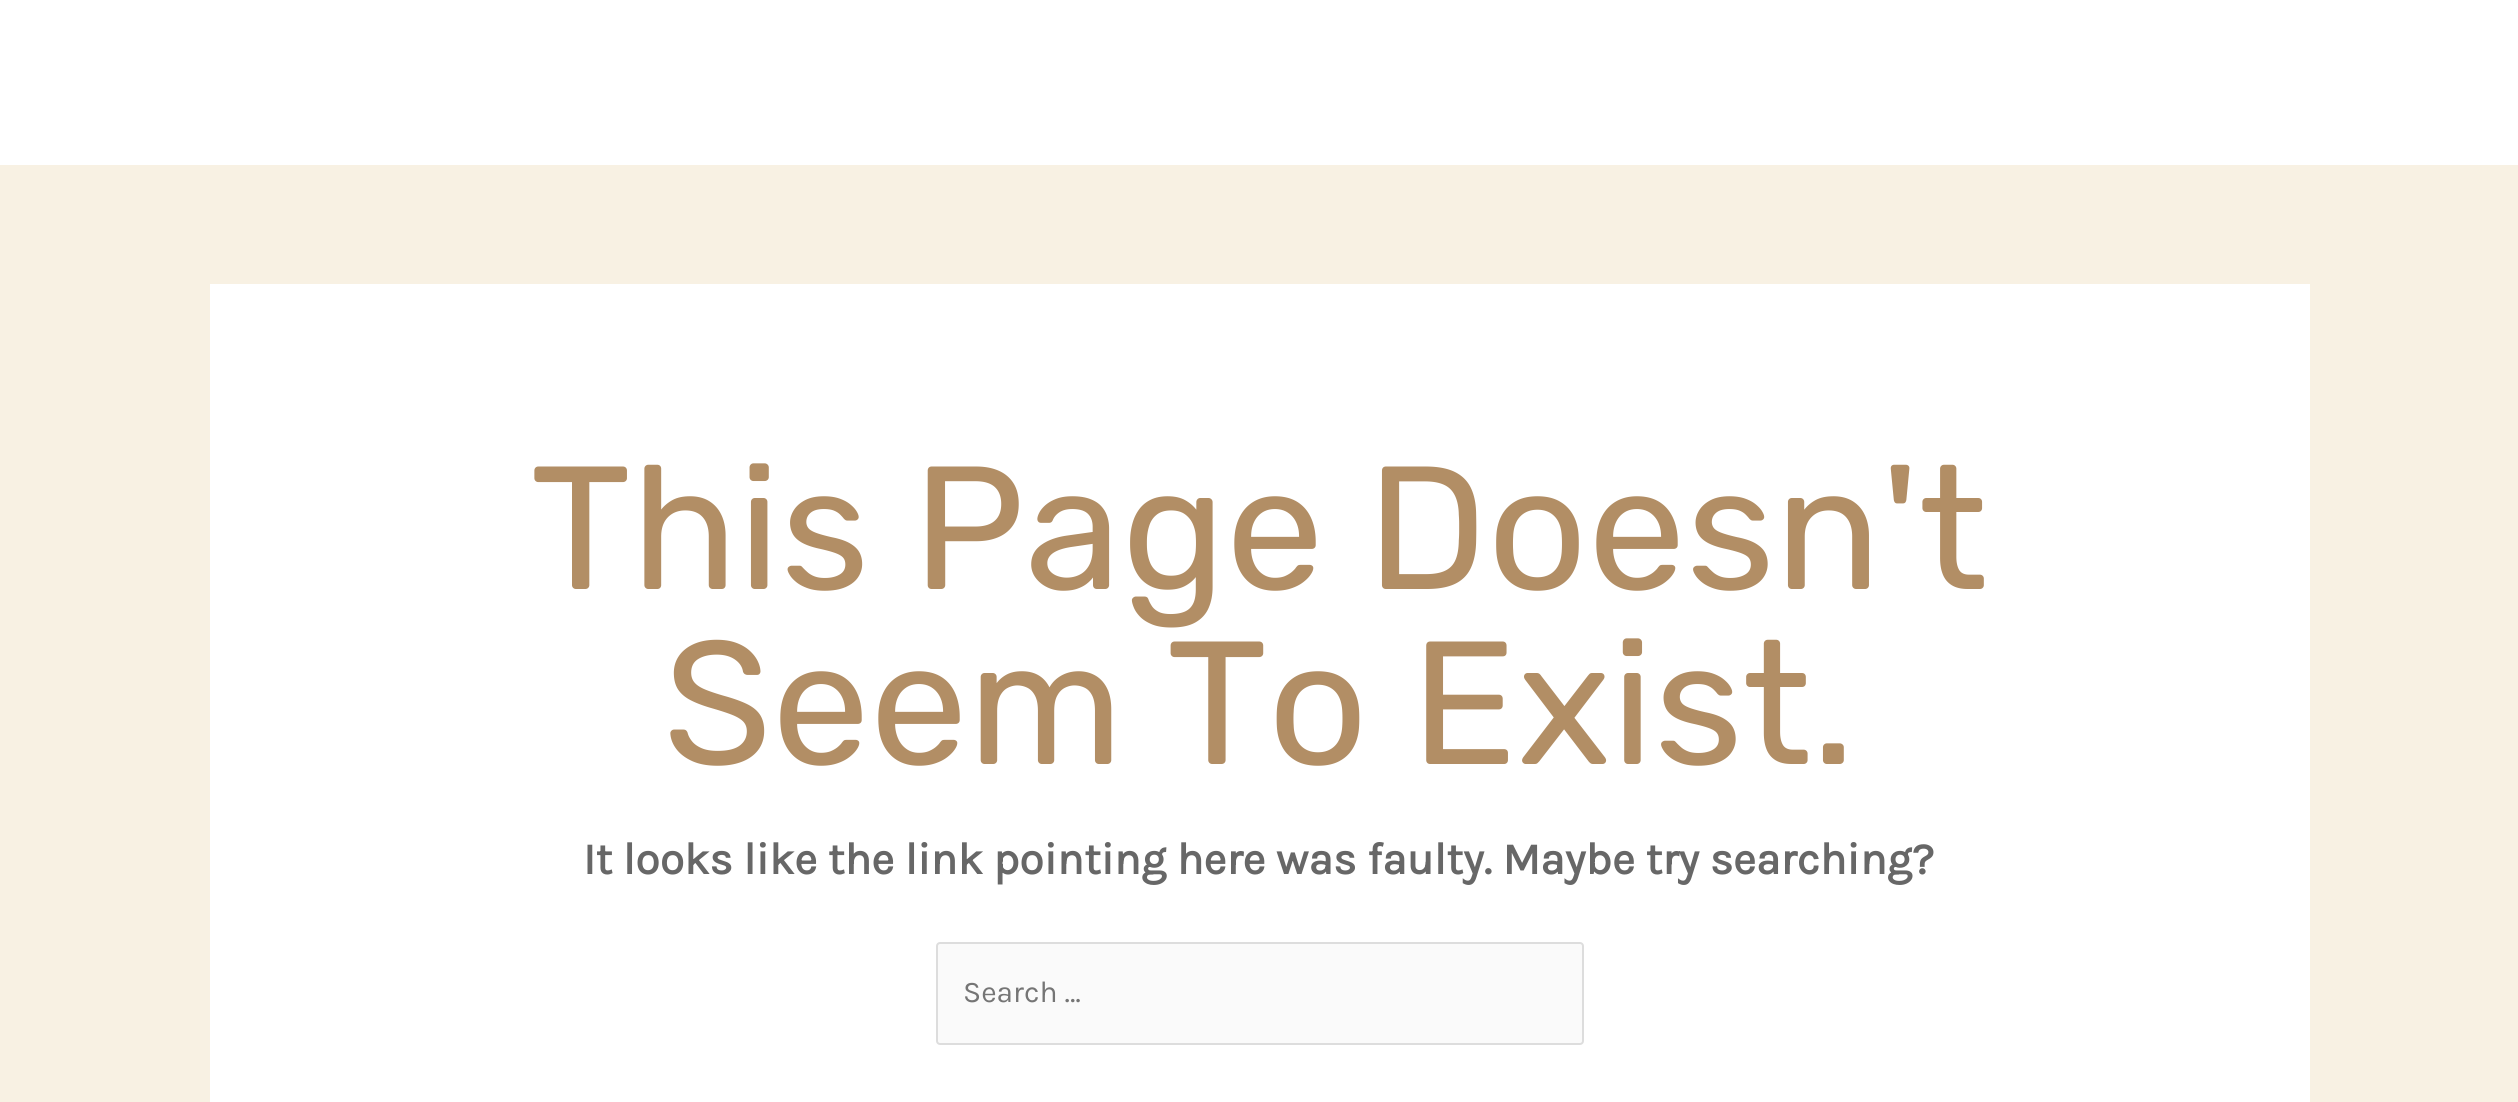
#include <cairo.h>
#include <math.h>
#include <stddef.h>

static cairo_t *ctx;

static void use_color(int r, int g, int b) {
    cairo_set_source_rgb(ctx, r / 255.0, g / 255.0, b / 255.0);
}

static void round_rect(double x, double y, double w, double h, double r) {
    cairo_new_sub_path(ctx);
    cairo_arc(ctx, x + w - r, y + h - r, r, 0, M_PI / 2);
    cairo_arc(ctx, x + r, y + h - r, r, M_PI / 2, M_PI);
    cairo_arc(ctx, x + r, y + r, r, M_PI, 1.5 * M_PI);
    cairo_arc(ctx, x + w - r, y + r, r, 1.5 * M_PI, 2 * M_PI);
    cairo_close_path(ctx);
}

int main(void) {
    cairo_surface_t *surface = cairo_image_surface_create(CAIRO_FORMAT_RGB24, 2518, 1102);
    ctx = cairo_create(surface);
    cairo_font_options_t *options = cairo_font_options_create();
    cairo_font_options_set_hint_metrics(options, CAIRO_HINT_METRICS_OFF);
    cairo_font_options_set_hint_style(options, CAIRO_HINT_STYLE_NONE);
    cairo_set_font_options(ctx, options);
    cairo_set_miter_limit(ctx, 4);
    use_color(248, 241, 227);
    cairo_paint(ctx);
    use_color(255, 255, 255);
    cairo_rectangle(ctx, 0, 0, 2518, 165);
    cairo_fill(ctx);
    cairo_rectangle(ctx, 210, 284, 2100, 818);
    cairo_fill(ctx);
    cairo_select_font_face(ctx, "Rubik", CAIRO_FONT_SLANT_NORMAL, CAIRO_FONT_WEIGHT_NORMAL);
    cairo_set_font_size(ctx, 175);
    use_color(178, 142, 101);
    cairo_move_to(ctx, 530, 589);
    cairo_show_text(ctx, "This Page Doesn't");
    cairo_move_to(ctx, 663, 764);
    cairo_show_text(ctx, "Seem To Exist.");
    cairo_select_font_face(ctx, "Karla", CAIRO_FONT_SLANT_NORMAL, CAIRO_FONT_WEIGHT_BOLD);
    cairo_set_font_size(ctx, 44.6);
    use_color(103, 103, 103);
    cairo_move_to(ctx, 583, 874);
    cairo_show_text(ctx, "It looks like the link pointing here was faulty. Maybe try searching?");
    use_color(250, 250, 250);
    round_rect(937, 943, 646, 101, 3);
    cairo_fill_preserve(ctx);
    use_color(221, 221, 221);
    cairo_stroke(ctx);
    cairo_select_font_face(ctx, "Karla", CAIRO_FONT_SLANT_NORMAL, CAIRO_FONT_WEIGHT_NORMAL);
    cairo_set_font_size(ctx, 30);
    use_color(117, 117, 117);
    cairo_move_to(ctx, 963, 1002);
    cairo_show_text(ctx, "Search …");
    cairo_surface_write_to_png(surface, "result.png");
    cairo_font_options_destroy(options);
    cairo_destroy(ctx);
    cairo_surface_destroy(surface);
    return 0;
}
